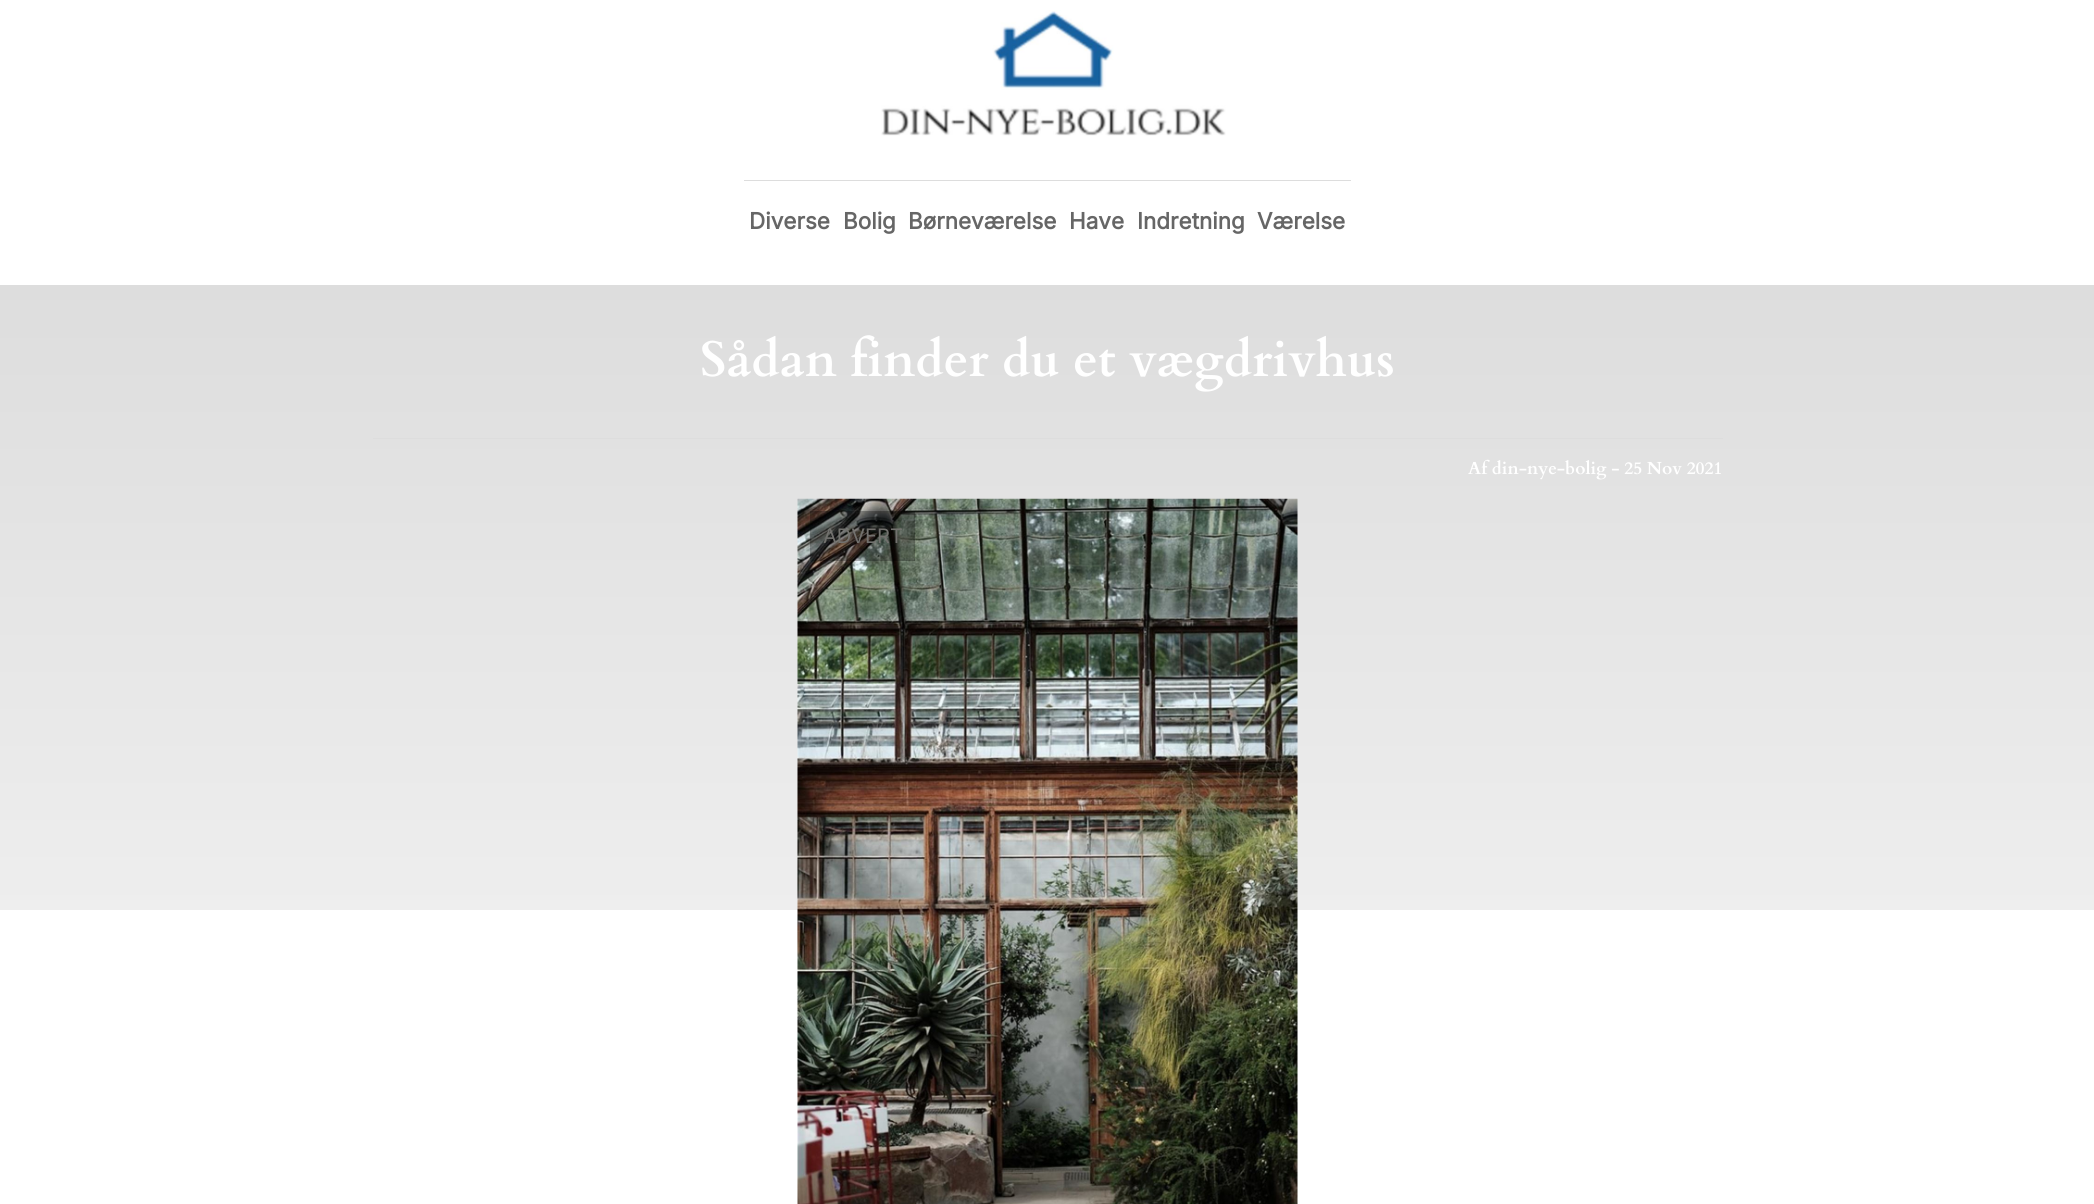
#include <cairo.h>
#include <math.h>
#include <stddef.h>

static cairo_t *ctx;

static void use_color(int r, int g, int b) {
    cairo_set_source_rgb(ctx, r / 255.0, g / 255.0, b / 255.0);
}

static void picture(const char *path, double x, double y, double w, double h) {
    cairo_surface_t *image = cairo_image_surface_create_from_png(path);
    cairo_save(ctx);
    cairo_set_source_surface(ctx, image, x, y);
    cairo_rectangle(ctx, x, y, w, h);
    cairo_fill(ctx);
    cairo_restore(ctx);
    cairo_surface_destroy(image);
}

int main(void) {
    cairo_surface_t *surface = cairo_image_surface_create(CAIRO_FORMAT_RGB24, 2094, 1204);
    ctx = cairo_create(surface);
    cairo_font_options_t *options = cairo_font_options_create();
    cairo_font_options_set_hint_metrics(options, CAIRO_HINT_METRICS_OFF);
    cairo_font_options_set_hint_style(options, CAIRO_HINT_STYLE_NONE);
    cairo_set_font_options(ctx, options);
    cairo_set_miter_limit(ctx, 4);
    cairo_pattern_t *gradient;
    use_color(255, 255, 255);
    cairo_paint(ctx);
    picture("img1.png", 881, 10, 345, 126);
    use_color(221, 221, 221);
    cairo_rectangle(ctx, 744, 180, 607, 1);
    cairo_fill(ctx);
    cairo_select_font_face(ctx, "Inter", CAIRO_FONT_SLANT_NORMAL, CAIRO_FONT_WEIGHT_BOLD);
    cairo_set_font_size(ctx, 22.5);
    use_color(102, 102, 102);
    cairo_move_to(ctx, 749, 229);
    cairo_show_text(ctx, "Diverse");
    cairo_move_to(ctx, 843, 229);
    cairo_show_text(ctx, "Bolig");
    cairo_move_to(ctx, 908, 229);
    cairo_show_text(ctx, "Børneværelse");
    cairo_move_to(ctx, 1069, 229);
    cairo_show_text(ctx, "Have");
    cairo_move_to(ctx, 1137, 229);
    cairo_show_text(ctx, "Indretning");
    cairo_move_to(ctx, 1257, 229);
    cairo_show_text(ctx, "Værelse");
    gradient = cairo_pattern_create_linear(1048, 285, 1048, 910);
    cairo_pattern_add_color_stop_rgba(gradient, 0, 0.867, 0.867, 0.867, 1);
    cairo_pattern_add_color_stop_rgba(gradient, 1, 0.933, 0.933, 0.933, 1);
    cairo_set_source(ctx, gradient);
    cairo_pattern_destroy(gradient);
    cairo_rectangle(ctx, 0, 285, 2094, 625);
    cairo_fill(ctx);
    cairo_select_font_face(ctx, "Cardo", CAIRO_FONT_SLANT_NORMAL, CAIRO_FONT_WEIGHT_BOLD);
    cairo_set_font_size(ctx, 50);
    use_color(255, 255, 255);
    cairo_move_to(ctx, 700, 376);
    cairo_show_text(ctx, "Sådan finder du et vægdrivhus");
    use_color(221, 221, 221);
    cairo_rectangle(ctx, 373, 438, 1350, 1);
    cairo_fill(ctx);
    cairo_set_font_size(ctx, 17.5);
    use_color(255, 255, 255);
    cairo_move_to(ctx, 1468, 474);
    cairo_show_text(ctx, "Af din-nye-bolig - 25 Nov 2021");
    picture("img2.png", 797, 498, 501, 706);
    cairo_set_source_rgba(ctx, 0, 0, 0, 0.3);
    cairo_rectangle(ctx, 810, 511, 105, 50);
    cairo_fill(ctx);
    cairo_select_font_face(ctx, "Inter", CAIRO_FONT_SLANT_NORMAL, CAIRO_FONT_WEIGHT_NORMAL);
    cairo_set_font_size(ctx, 20);
    use_color(114, 113, 110);
    cairo_move_to(ctx, 823, 543);
    cairo_show_text(ctx, "ADVERT");
    cairo_surface_write_to_png(surface, "result.png");
    cairo_font_options_destroy(options);
    cairo_destroy(ctx);
    cairo_surface_destroy(surface);
    return 0;
}
